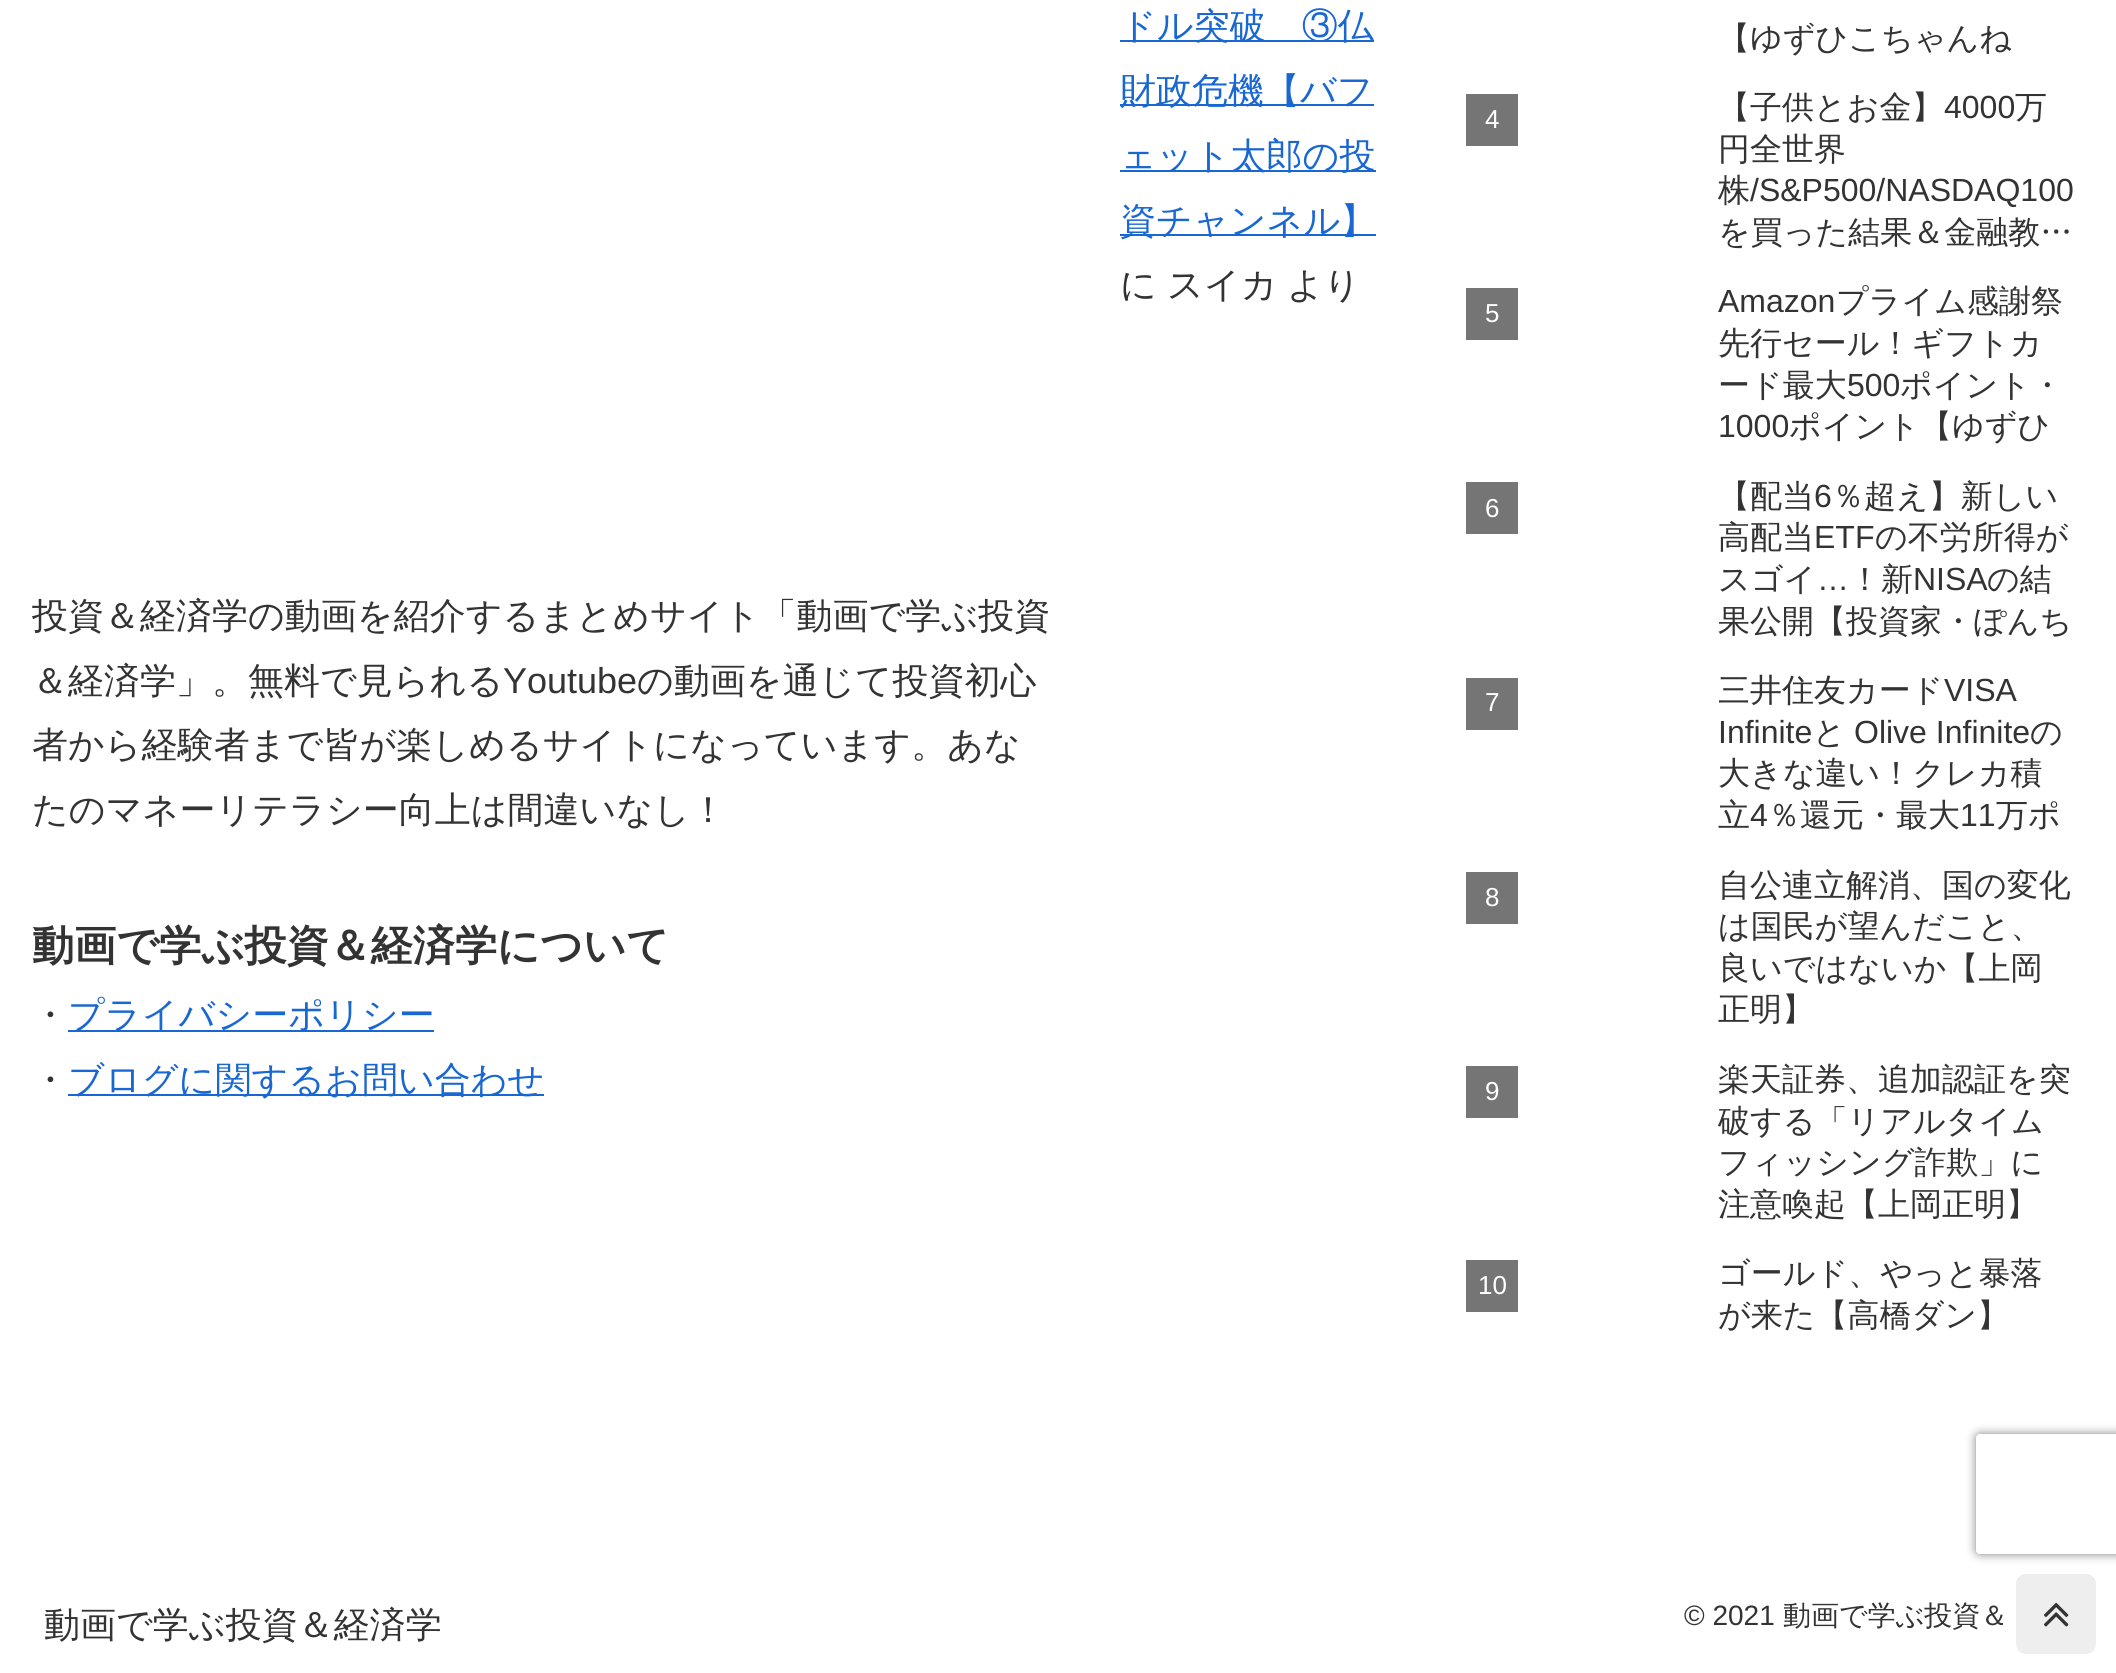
#include <cairo.h>
#include <math.h>
#include <stddef.h>

static cairo_t *ctx;

static void use_color(int r, int g, int b) {
    cairo_set_source_rgb(ctx, r / 255.0, g / 255.0, b / 255.0);
}

static void round_rect(double x, double y, double w, double h, double r) {
    cairo_new_sub_path(ctx);
    cairo_arc(ctx, x + w - r, y + h - r, r, 0, M_PI / 2);
    cairo_arc(ctx, x + r, y + h - r, r, M_PI / 2, M_PI);
    cairo_arc(ctx, x + r, y + r, r, M_PI, 1.5 * M_PI);
    cairo_arc(ctx, x + w - r, y + r, r, 1.5 * M_PI, 2 * M_PI);
    cairo_close_path(ctx);
}

static void shadow(double x, double y, double w, double h, double r, double blur, double alpha) {
    cairo_push_group_with_content(ctx, CAIRO_CONTENT_ALPHA);
    cairo_set_operator(ctx, CAIRO_OPERATOR_SOURCE);
    for (int i = 15; i >= -15 && fmin(w, h) + blur * i / 3 > 0; i -= 2) {
        double e = blur * i / 6;
        cairo_set_source_rgba(ctx, 0, 0, 0, alpha * erfc((i - 1) / 8.5) / 2);
        round_rect(x - e, y - e, w + 2 * e, h + 2 * e, fmax(0, fmin(r + e + blur * .6, fmin(w, h) / 2 + e)));
        cairo_fill(ctx);
    }
    cairo_pattern_t *soft = cairo_pop_group(ctx);
    cairo_mask(ctx, soft);
    cairo_pattern_destroy(soft);
}

static void picture(const char *path, double x, double y, double w, double h) {
    cairo_surface_t *image = cairo_image_surface_create_from_png(path);
    cairo_save(ctx);
    cairo_set_source_surface(ctx, image, x, y);
    cairo_rectangle(ctx, x, y, w, h);
    cairo_fill(ctx);
    cairo_restore(ctx);
    cairo_surface_destroy(image);
}

int main(void) {
    cairo_surface_t *surface = cairo_image_surface_create(CAIRO_FORMAT_RGB24, 2116, 1673);
    ctx = cairo_create(surface);
    cairo_font_options_t *options = cairo_font_options_create();
    cairo_font_options_set_hint_metrics(options, CAIRO_HINT_METRICS_OFF);
    cairo_font_options_set_hint_style(options, CAIRO_HINT_STYLE_NONE);
    cairo_set_font_options(ctx, options);
    cairo_set_miter_limit(ctx, 4);
    use_color(255, 255, 255);
    cairo_paint(ctx);
    cairo_select_font_face(ctx, "WenQuanYi Zen Hei Medium", CAIRO_FONT_SLANT_NORMAL, CAIRO_FONT_WEIGHT_NORMAL);
    cairo_set_font_size(ctx, 36);
    use_color(51, 51, 51);
    cairo_move_to(ctx, 32, 628);
    cairo_show_text(ctx, "投資＆経済学の動画を紹介するまとめサイト「動画で学ぶ投資");
    cairo_move_to(ctx, 32, 693);
    cairo_show_text(ctx, "＆経済学」。無料で見られる");
    cairo_select_font_face(ctx, "Liberation Sans", CAIRO_FONT_SLANT_NORMAL, CAIRO_FONT_WEIGHT_NORMAL);
    cairo_move_to(ctx, 503, 693);
    cairo_show_text(ctx, "Youtube");
    cairo_select_font_face(ctx, "WenQuanYi Zen Hei Medium", CAIRO_FONT_SLANT_NORMAL, CAIRO_FONT_WEIGHT_NORMAL);
    cairo_move_to(ctx, 637, 693);
    cairo_show_text(ctx, "の動画を通じて投資初心");
    cairo_move_to(ctx, 32, 757);
    cairo_show_text(ctx, "者から経験者まで皆が楽しめるサイトになっています。あな");
    cairo_move_to(ctx, 32, 822);
    cairo_show_text(ctx, "たのマネーリテラシー向上は間違いなし！");
    cairo_select_font_face(ctx, "WenQuanYi Zen Hei", CAIRO_FONT_SLANT_NORMAL, CAIRO_FONT_WEIGHT_BOLD);
    cairo_set_font_size(ctx, 42.1);
    cairo_move_to(ctx, 32, 960);
    cairo_show_text(ctx, "動画で学ぶ投資＆経済学について");
    cairo_select_font_face(ctx, "WenQuanYi Zen Hei Medium", CAIRO_FONT_SLANT_NORMAL, CAIRO_FONT_WEIGHT_NORMAL);
    cairo_set_font_size(ctx, 36);
    cairo_move_to(ctx, 32, 1027);
    cairo_show_text(ctx, "・");
    use_color(25, 103, 210);
    cairo_rectangle(ctx, 68, 1030, 366, 2);
    cairo_fill(ctx);
    cairo_move_to(ctx, 68, 1027);
    cairo_show_text(ctx, "プライバシーポリシー");
    use_color(51, 51, 51);
    cairo_move_to(ctx, 32, 1092);
    cairo_show_text(ctx, "・");
    use_color(25, 103, 210);
    cairo_rectangle(ctx, 68, 1094, 476, 2);
    cairo_fill(ctx);
    cairo_move_to(ctx, 68, 1092);
    cairo_show_text(ctx, "ブログに関するお問い合わせ");
    cairo_rectangle(ctx, 1120, 40, 254, 2);
    cairo_fill(ctx);
    cairo_move_to(ctx, 1120, 38);
    cairo_show_text(ctx, "ドル突破　③仏");
    cairo_rectangle(ctx, 1120, 104, 254, 2);
    cairo_fill(ctx);
    cairo_move_to(ctx, 1120, 103);
    cairo_show_text(ctx, "財政危機【バフ");
    cairo_rectangle(ctx, 1120, 170, 256, 2);
    cairo_fill(ctx);
    cairo_move_to(ctx, 1120, 168);
    cairo_show_text(ctx, "ェット太郎の投");
    cairo_rectangle(ctx, 1120, 234, 256, 2);
    cairo_fill(ctx);
    cairo_move_to(ctx, 1120, 233);
    cairo_show_text(ctx, "資チャンネル】");
    use_color(51, 51, 51);
    cairo_move_to(ctx, 1120, 297);
    cairo_show_text(ctx, "に");
    cairo_move_to(ctx, 1167, 297);
    cairo_show_text(ctx, "スイカ");
    cairo_move_to(ctx, 1287, 297);
    cairo_show_text(ctx, "より");
    cairo_set_font_size(ctx, 32);
    cairo_move_to(ctx, 1718, 49);
    cairo_show_text(ctx, "【ゆずひこちゃんね");
    use_color(117, 117, 117);
    cairo_rectangle(ctx, 1466, 94, 52, 52);
    cairo_fill(ctx);
    cairo_select_font_face(ctx, "Liberation Sans", CAIRO_FONT_SLANT_NORMAL, CAIRO_FONT_WEIGHT_NORMAL);
    cairo_set_font_size(ctx, 26);
    use_color(255, 255, 255);
    cairo_move_to(ctx, 1485, 128);
    cairo_show_text(ctx, "4");
    cairo_select_font_face(ctx, "WenQuanYi Zen Hei Medium", CAIRO_FONT_SLANT_NORMAL, CAIRO_FONT_WEIGHT_NORMAL);
    cairo_set_font_size(ctx, 32);
    use_color(51, 51, 51);
    cairo_move_to(ctx, 1718, 118);
    cairo_show_text(ctx, "【子供とお金】");
    cairo_select_font_face(ctx, "Liberation Sans", CAIRO_FONT_SLANT_NORMAL, CAIRO_FONT_WEIGHT_NORMAL);
    cairo_move_to(ctx, 1944, 118);
    cairo_show_text(ctx, "4000");
    cairo_select_font_face(ctx, "WenQuanYi Zen Hei Medium", CAIRO_FONT_SLANT_NORMAL, CAIRO_FONT_WEIGHT_NORMAL);
    cairo_move_to(ctx, 2015, 118);
    cairo_show_text(ctx, "万");
    cairo_move_to(ctx, 1718, 160);
    cairo_show_text(ctx, "円全世界");
    cairo_move_to(ctx, 1718, 201);
    cairo_show_text(ctx, "株");
    cairo_select_font_face(ctx, "Liberation Sans", CAIRO_FONT_SLANT_NORMAL, CAIRO_FONT_WEIGHT_NORMAL);
    cairo_move_to(ctx, 1750, 201);
    cairo_show_text(ctx, "/S&P500/NASDAQ100");
    cairo_select_font_face(ctx, "WenQuanYi Zen Hei Medium", CAIRO_FONT_SLANT_NORMAL, CAIRO_FONT_WEIGHT_NORMAL);
    cairo_move_to(ctx, 1718, 243);
    cairo_show_text(ctx, "を買った結果＆金融教…");
    use_color(117, 117, 117);
    cairo_rectangle(ctx, 1466, 288, 52, 52);
    cairo_fill(ctx);
    cairo_select_font_face(ctx, "Liberation Sans", CAIRO_FONT_SLANT_NORMAL, CAIRO_FONT_WEIGHT_NORMAL);
    cairo_set_font_size(ctx, 26);
    use_color(255, 255, 255);
    cairo_move_to(ctx, 1485, 322);
    cairo_show_text(ctx, "5");
    cairo_set_font_size(ctx, 32);
    use_color(51, 51, 51);
    cairo_move_to(ctx, 1718, 312);
    cairo_show_text(ctx, "Amazon");
    cairo_select_font_face(ctx, "WenQuanYi Zen Hei Medium", CAIRO_FONT_SLANT_NORMAL, CAIRO_FONT_WEIGHT_NORMAL);
    cairo_move_to(ctx, 1836, 312);
    cairo_show_text(ctx, "プライム感謝祭");
    cairo_move_to(ctx, 1718, 354);
    cairo_show_text(ctx, "先行セール！ギフトカ");
    cairo_move_to(ctx, 1718, 396);
    cairo_show_text(ctx, "ード最大");
    cairo_select_font_face(ctx, "Liberation Sans", CAIRO_FONT_SLANT_NORMAL, CAIRO_FONT_WEIGHT_NORMAL);
    cairo_move_to(ctx, 1847, 396);
    cairo_show_text(ctx, "500");
    cairo_select_font_face(ctx, "WenQuanYi Zen Hei Medium", CAIRO_FONT_SLANT_NORMAL, CAIRO_FONT_WEIGHT_NORMAL);
    cairo_move_to(ctx, 1900, 396);
    cairo_show_text(ctx, "ポイント・");
    cairo_select_font_face(ctx, "Liberation Sans", CAIRO_FONT_SLANT_NORMAL, CAIRO_FONT_WEIGHT_NORMAL);
    cairo_move_to(ctx, 1718, 437);
    cairo_show_text(ctx, "1000");
    cairo_select_font_face(ctx, "WenQuanYi Zen Hei Medium", CAIRO_FONT_SLANT_NORMAL, CAIRO_FONT_WEIGHT_NORMAL);
    cairo_move_to(ctx, 1789, 437);
    cairo_show_text(ctx, "ポイント【ゆずひ");
    use_color(117, 117, 117);
    cairo_rectangle(ctx, 1466, 482, 52, 52);
    cairo_fill(ctx);
    cairo_select_font_face(ctx, "Liberation Sans", CAIRO_FONT_SLANT_NORMAL, CAIRO_FONT_WEIGHT_NORMAL);
    cairo_set_font_size(ctx, 26);
    use_color(255, 255, 255);
    cairo_move_to(ctx, 1485, 517);
    cairo_show_text(ctx, "6");
    cairo_select_font_face(ctx, "WenQuanYi Zen Hei Medium", CAIRO_FONT_SLANT_NORMAL, CAIRO_FONT_WEIGHT_NORMAL);
    cairo_set_font_size(ctx, 32);
    use_color(51, 51, 51);
    cairo_move_to(ctx, 1718, 507);
    cairo_show_text(ctx, "【配当");
    cairo_select_font_face(ctx, "Liberation Sans", CAIRO_FONT_SLANT_NORMAL, CAIRO_FONT_WEIGHT_NORMAL);
    cairo_move_to(ctx, 1814, 507);
    cairo_show_text(ctx, "6");
    cairo_select_font_face(ctx, "WenQuanYi Zen Hei Medium", CAIRO_FONT_SLANT_NORMAL, CAIRO_FONT_WEIGHT_NORMAL);
    cairo_move_to(ctx, 1832, 507);
    cairo_show_text(ctx, "％超え】新しい");
    cairo_move_to(ctx, 1718, 548);
    cairo_show_text(ctx, "高配当");
    cairo_select_font_face(ctx, "Liberation Sans", CAIRO_FONT_SLANT_NORMAL, CAIRO_FONT_WEIGHT_NORMAL);
    cairo_move_to(ctx, 1814, 548);
    cairo_show_text(ctx, "ETF");
    cairo_select_font_face(ctx, "WenQuanYi Zen Hei Medium", CAIRO_FONT_SLANT_NORMAL, CAIRO_FONT_WEIGHT_NORMAL);
    cairo_move_to(ctx, 1875, 548);
    cairo_show_text(ctx, "の不労所得が");
    cairo_move_to(ctx, 1718, 590);
    cairo_show_text(ctx, "スゴイ");
    cairo_select_font_face(ctx, "Liberation Sans", CAIRO_FONT_SLANT_NORMAL, CAIRO_FONT_WEIGHT_NORMAL);
    cairo_move_to(ctx, 1817, 590);
    cairo_show_text(ctx, "…");
    cairo_select_font_face(ctx, "WenQuanYi Zen Hei Medium", CAIRO_FONT_SLANT_NORMAL, CAIRO_FONT_WEIGHT_NORMAL);
    cairo_move_to(ctx, 1849, 590);
    cairo_show_text(ctx, "！新");
    cairo_select_font_face(ctx, "Liberation Sans", CAIRO_FONT_SLANT_NORMAL, CAIRO_FONT_WEIGHT_NORMAL);
    cairo_move_to(ctx, 1913, 590);
    cairo_show_text(ctx, "NISA");
    cairo_select_font_face(ctx, "WenQuanYi Zen Hei Medium", CAIRO_FONT_SLANT_NORMAL, CAIRO_FONT_WEIGHT_NORMAL);
    cairo_move_to(ctx, 1987, 590);
    cairo_show_text(ctx, "の結");
    cairo_move_to(ctx, 1718, 632);
    cairo_show_text(ctx, "果公開【投資家・ぽんち");
    use_color(117, 117, 117);
    cairo_rectangle(ctx, 1466, 678, 52, 52);
    cairo_fill(ctx);
    cairo_select_font_face(ctx, "Liberation Sans", CAIRO_FONT_SLANT_NORMAL, CAIRO_FONT_WEIGHT_NORMAL);
    cairo_set_font_size(ctx, 26);
    use_color(255, 255, 255);
    cairo_move_to(ctx, 1485, 711);
    cairo_show_text(ctx, "7");
    cairo_select_font_face(ctx, "WenQuanYi Zen Hei Medium", CAIRO_FONT_SLANT_NORMAL, CAIRO_FONT_WEIGHT_NORMAL);
    cairo_set_font_size(ctx, 32);
    use_color(51, 51, 51);
    cairo_move_to(ctx, 1718, 701);
    cairo_show_text(ctx, "三井住友カード");
    cairo_select_font_face(ctx, "Liberation Sans", CAIRO_FONT_SLANT_NORMAL, CAIRO_FONT_WEIGHT_NORMAL);
    cairo_move_to(ctx, 1944, 701);
    cairo_show_text(ctx, "VISA");
    cairo_move_to(ctx, 1718, 743);
    cairo_show_text(ctx, "Infinite");
    cairo_select_font_face(ctx, "WenQuanYi Zen Hei Medium", CAIRO_FONT_SLANT_NORMAL, CAIRO_FONT_WEIGHT_NORMAL);
    cairo_move_to(ctx, 1813, 743);
    cairo_show_text(ctx, "と");
    cairo_select_font_face(ctx, "Liberation Sans", CAIRO_FONT_SLANT_NORMAL, CAIRO_FONT_WEIGHT_NORMAL);
    cairo_move_to(ctx, 1854, 743);
    cairo_show_text(ctx, "Olive Infinite");
    cairo_select_font_face(ctx, "WenQuanYi Zen Hei Medium", CAIRO_FONT_SLANT_NORMAL, CAIRO_FONT_WEIGHT_NORMAL);
    cairo_move_to(ctx, 2030, 743);
    cairo_show_text(ctx, "の");
    cairo_move_to(ctx, 1718, 784);
    cairo_show_text(ctx, "大きな違い！クレカ積");
    cairo_move_to(ctx, 1718, 826);
    cairo_show_text(ctx, "立");
    cairo_select_font_face(ctx, "Liberation Sans", CAIRO_FONT_SLANT_NORMAL, CAIRO_FONT_WEIGHT_NORMAL);
    cairo_move_to(ctx, 1750, 826);
    cairo_show_text(ctx, "4");
    cairo_select_font_face(ctx, "WenQuanYi Zen Hei Medium", CAIRO_FONT_SLANT_NORMAL, CAIRO_FONT_WEIGHT_NORMAL);
    cairo_move_to(ctx, 1768, 826);
    cairo_show_text(ctx, "％還元・最大");
    cairo_select_font_face(ctx, "Liberation Sans", CAIRO_FONT_SLANT_NORMAL, CAIRO_FONT_WEIGHT_NORMAL);
    cairo_move_to(ctx, 1960, 826);
    cairo_show_text(ctx, "11");
    cairo_select_font_face(ctx, "WenQuanYi Zen Hei Medium", CAIRO_FONT_SLANT_NORMAL, CAIRO_FONT_WEIGHT_NORMAL);
    cairo_move_to(ctx, 1996, 826);
    cairo_show_text(ctx, "万ポ");
    use_color(117, 117, 117);
    cairo_rectangle(ctx, 1466, 872, 52, 52);
    cairo_fill(ctx);
    cairo_select_font_face(ctx, "Liberation Sans", CAIRO_FONT_SLANT_NORMAL, CAIRO_FONT_WEIGHT_NORMAL);
    cairo_set_font_size(ctx, 26);
    use_color(255, 255, 255);
    cairo_move_to(ctx, 1485, 906);
    cairo_show_text(ctx, "8");
    cairo_select_font_face(ctx, "WenQuanYi Zen Hei Medium", CAIRO_FONT_SLANT_NORMAL, CAIRO_FONT_WEIGHT_NORMAL);
    cairo_set_font_size(ctx, 32);
    use_color(51, 51, 51);
    cairo_move_to(ctx, 1718, 896);
    cairo_show_text(ctx, "自公連立解消、国の変化");
    cairo_move_to(ctx, 1718, 937);
    cairo_show_text(ctx, "は国民が望んだこと、");
    cairo_move_to(ctx, 1718, 979);
    cairo_show_text(ctx, "良いではないか【上岡");
    cairo_move_to(ctx, 1718, 1020);
    cairo_show_text(ctx, "正明】");
    use_color(117, 117, 117);
    cairo_rectangle(ctx, 1466, 1066, 52, 52);
    cairo_fill(ctx);
    cairo_select_font_face(ctx, "Liberation Sans", CAIRO_FONT_SLANT_NORMAL, CAIRO_FONT_WEIGHT_NORMAL);
    cairo_set_font_size(ctx, 26);
    use_color(255, 255, 255);
    cairo_move_to(ctx, 1485, 1100);
    cairo_show_text(ctx, "9");
    cairo_select_font_face(ctx, "WenQuanYi Zen Hei Medium", CAIRO_FONT_SLANT_NORMAL, CAIRO_FONT_WEIGHT_NORMAL);
    cairo_set_font_size(ctx, 32);
    use_color(51, 51, 51);
    cairo_move_to(ctx, 1718, 1090);
    cairo_show_text(ctx, "楽天証券、追加認証を突");
    cairo_move_to(ctx, 1718, 1132);
    cairo_show_text(ctx, "破する「リアルタイム");
    cairo_move_to(ctx, 1718, 1173);
    cairo_show_text(ctx, "フィッシング詐欺」に");
    cairo_move_to(ctx, 1718, 1215);
    cairo_show_text(ctx, "注意喚起【上岡正明】");
    use_color(117, 117, 117);
    cairo_rectangle(ctx, 1466, 1260, 52, 52);
    cairo_fill(ctx);
    cairo_select_font_face(ctx, "Liberation Sans", CAIRO_FONT_SLANT_NORMAL, CAIRO_FONT_WEIGHT_NORMAL);
    cairo_set_font_size(ctx, 26);
    use_color(255, 255, 255);
    cairo_move_to(ctx, 1478, 1294);
    cairo_show_text(ctx, "10");
    cairo_select_font_face(ctx, "WenQuanYi Zen Hei Medium", CAIRO_FONT_SLANT_NORMAL, CAIRO_FONT_WEIGHT_NORMAL);
    cairo_set_font_size(ctx, 32);
    use_color(51, 51, 51);
    cairo_move_to(ctx, 1718, 1284);
    cairo_show_text(ctx, "ゴールド、やっと暴落");
    cairo_move_to(ctx, 1718, 1326);
    cairo_show_text(ctx, "が来た【高橋ダン】");
    cairo_set_font_size(ctx, 36);
    cairo_move_to(ctx, 44, 1637);
    cairo_show_text(ctx, "動画で学ぶ投資＆経済学");
    cairo_select_font_face(ctx, "Liberation Sans", CAIRO_FONT_SLANT_NORMAL, CAIRO_FONT_WEIGHT_NORMAL);
    cairo_set_font_size(ctx, 28);
    cairo_move_to(ctx, 1684, 1625);
    cairo_show_text(ctx, "© 2021");
    cairo_select_font_face(ctx, "WenQuanYi Zen Hei Medium", CAIRO_FONT_SLANT_NORMAL, CAIRO_FONT_WEIGHT_NORMAL);
    cairo_move_to(ctx, 1783, 1625);
    cairo_show_text(ctx, "動画で学ぶ投資＆");
    use_color(238, 238, 238);
    round_rect(2016, 1574, 80, 80, 10);
    cairo_fill(ctx);
    picture("img1.png", 2043, 1602, 26, 25);
    cairo_save(ctx);
    cairo_set_fill_rule(ctx, CAIRO_FILL_RULE_EVEN_ODD);
    cairo_new_path(ctx);
    cairo_move_to(ctx, 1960, 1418);
    cairo_line_to(ctx, 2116, 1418);
    cairo_line_to(ctx, 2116, 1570);
    cairo_line_to(ctx, 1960, 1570);
    cairo_close_path(ctx);
    cairo_move_to(ctx, 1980, 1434);
    cairo_line_to(ctx, 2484, 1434);
    cairo_curve_to(ctx, 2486, 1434, 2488, 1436, 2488, 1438);
    cairo_line_to(ctx, 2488, 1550);
    cairo_curve_to(ctx, 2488, 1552, 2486, 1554, 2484, 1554);
    cairo_line_to(ctx, 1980, 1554);
    cairo_curve_to(ctx, 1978, 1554, 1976, 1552, 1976, 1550);
    cairo_line_to(ctx, 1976, 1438);
    cairo_curve_to(ctx, 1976, 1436, 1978, 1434, 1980, 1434);
    cairo_close_path(ctx);
    cairo_clip(ctx);
    use_color(128, 128, 128);
    shadow(1976, 1434, 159, 120, 4, 5, 1);
    cairo_restore(ctx);
    cairo_surface_write_to_png(surface, "result.png");
    cairo_font_options_destroy(options);
    cairo_destroy(ctx);
    cairo_surface_destroy(surface);
    return 0;
}
